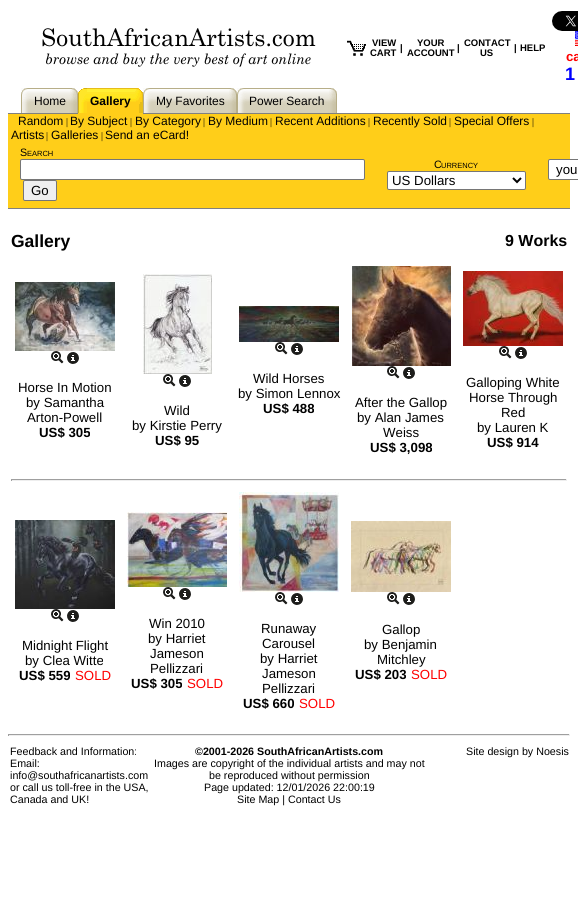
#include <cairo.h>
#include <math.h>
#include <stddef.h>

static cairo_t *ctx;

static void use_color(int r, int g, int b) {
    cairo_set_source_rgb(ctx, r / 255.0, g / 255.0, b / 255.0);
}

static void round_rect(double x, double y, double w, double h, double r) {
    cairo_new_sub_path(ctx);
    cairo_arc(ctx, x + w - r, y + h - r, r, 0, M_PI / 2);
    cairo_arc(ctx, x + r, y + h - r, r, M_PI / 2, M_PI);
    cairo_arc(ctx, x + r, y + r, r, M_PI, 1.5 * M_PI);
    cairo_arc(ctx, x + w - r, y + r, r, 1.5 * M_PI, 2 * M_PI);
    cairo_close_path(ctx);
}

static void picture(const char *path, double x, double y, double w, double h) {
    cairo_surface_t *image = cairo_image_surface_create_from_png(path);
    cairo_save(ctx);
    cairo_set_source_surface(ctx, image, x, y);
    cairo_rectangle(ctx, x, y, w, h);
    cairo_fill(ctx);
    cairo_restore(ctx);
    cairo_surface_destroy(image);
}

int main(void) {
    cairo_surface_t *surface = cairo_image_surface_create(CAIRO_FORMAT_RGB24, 578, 910);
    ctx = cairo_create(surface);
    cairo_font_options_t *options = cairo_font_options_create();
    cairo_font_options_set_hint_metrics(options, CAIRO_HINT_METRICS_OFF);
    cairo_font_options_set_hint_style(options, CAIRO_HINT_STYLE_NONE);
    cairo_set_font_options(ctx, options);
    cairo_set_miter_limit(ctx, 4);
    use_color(255, 255, 255);
    cairo_paint(ctx);
    picture("img1.png", 42, 28, 274, 39);
    picture("img2.png", 347, 40, 19, 16);
    cairo_select_font_face(ctx, "Liberation Sans", CAIRO_FONT_SLANT_NORMAL, CAIRO_FONT_WEIGHT_BOLD);
    cairo_set_font_size(ctx, 9.5);
    use_color(0, 0, 0);
    cairo_move_to(ctx, 372, 46);
    cairo_show_text(ctx, "VIEW");
    cairo_move_to(ctx, 370, 56);
    cairo_show_text(ctx, "CART");
    cairo_move_to(ctx, 400, 51);
    cairo_show_text(ctx, "|");
    cairo_move_to(ctx, 417, 46);
    cairo_show_text(ctx, "YOUR");
    cairo_move_to(ctx, 407, 56);
    cairo_show_text(ctx, "ACCOUNT");
    cairo_move_to(ctx, 457, 51);
    cairo_show_text(ctx, "|");
    cairo_move_to(ctx, 464, 46);
    cairo_show_text(ctx, "CONTACT");
    cairo_move_to(ctx, 480, 56);
    cairo_show_text(ctx, "US");
    cairo_move_to(ctx, 514, 51);
    cairo_show_text(ctx, "|");
    cairo_move_to(ctx, 520, 51);
    cairo_show_text(ctx, "HELP");
    picture("img3.png", 552, 11, 26, 20);
    picture("img4.png", 575, 31, 3, 15);
    cairo_set_font_size(ctx, 13.25);
    use_color(255, 0, 0);
    cairo_move_to(ctx, 566, 61);
    cairo_show_text(ctx, "ca");
    cairo_set_font_size(ctx, 18);
    use_color(0, 0, 255);
    cairo_move_to(ctx, 565, 80);
    cairo_show_text(ctx, "1");
    picture("img5.png", 21, 88, 9, 25);
    picture("img6.png", 69, 88, 9, 25);
    use_color(255, 206, 25);
    cairo_rectangle(ctx, 78, 113, 65, 1);
    cairo_fill(ctx);
    picture("img7.png", 78, 88, 9, 25);
    picture("img8.png", 134, 88, 9, 25);
    use_color(128, 128, 128);
    cairo_rectangle(ctx, 143, 113, 427, 1);
    cairo_fill(ctx);
    picture("img5.png", 143, 88, 9, 25);
    picture("img9.png", 30, 88, 39, 25);
    cairo_select_font_face(ctx, "Liberation Sans", CAIRO_FONT_SLANT_NORMAL, CAIRO_FONT_WEIGHT_NORMAL);
    cairo_set_font_size(ctx, 12);
    use_color(0, 0, 0);
    cairo_move_to(ctx, 34, 105);
    cairo_show_text(ctx, "Home");
    picture("img10.png", 87, 88, 47, 25);
    cairo_select_font_face(ctx, "Liberation Sans", CAIRO_FONT_SLANT_NORMAL, CAIRO_FONT_WEIGHT_BOLD);
    cairo_move_to(ctx, 90, 105);
    cairo_show_text(ctx, "Gallery");
    picture("img11.png", 152, 88, 76, 25);
    cairo_select_font_face(ctx, "Liberation Sans", CAIRO_FONT_SLANT_NORMAL, CAIRO_FONT_WEIGHT_NORMAL);
    cairo_move_to(ctx, 156, 105);
    cairo_show_text(ctx, "My Favorites");
    picture("img6.png", 228, 88, 9, 25);
    picture("img5.png", 237, 88, 9, 25);
    picture("img12.png", 246, 88, 82, 25);
    cairo_move_to(ctx, 249, 105);
    cairo_show_text(ctx, "Power Search");
    picture("img6.png", 328, 88, 9, 25);
    use_color(128, 128, 128);
    cairo_rectangle(ctx, 8, 113, 70, 1);
    cairo_fill(ctx);
    use_color(255, 206, 25);
    cairo_rectangle(ctx, 8, 114, 562, 94);
    cairo_fill(ctx);
    use_color(0, 0, 0);
    cairo_move_to(ctx, 18, 125);
    cairo_show_text(ctx, "Random");
    cairo_select_font_face(ctx, "Liberation Serif", CAIRO_FONT_SLANT_NORMAL, CAIRO_FONT_WEIGHT_NORMAL);
    cairo_set_font_size(ctx, 10);
    cairo_move_to(ctx, 66, 125);
    cairo_show_text(ctx, "|");
    cairo_select_font_face(ctx, "Liberation Sans", CAIRO_FONT_SLANT_NORMAL, CAIRO_FONT_WEIGHT_NORMAL);
    cairo_set_font_size(ctx, 12);
    cairo_move_to(ctx, 70, 125);
    cairo_show_text(ctx, "By Subject");
    cairo_select_font_face(ctx, "Liberation Serif", CAIRO_FONT_SLANT_NORMAL, CAIRO_FONT_WEIGHT_NORMAL);
    cairo_set_font_size(ctx, 10);
    cairo_move_to(ctx, 130, 125);
    cairo_show_text(ctx, "|");
    cairo_select_font_face(ctx, "Liberation Sans", CAIRO_FONT_SLANT_NORMAL, CAIRO_FONT_WEIGHT_NORMAL);
    cairo_set_font_size(ctx, 12);
    cairo_move_to(ctx, 135, 125);
    cairo_show_text(ctx, "By Category");
    cairo_select_font_face(ctx, "Liberation Serif", CAIRO_FONT_SLANT_NORMAL, CAIRO_FONT_WEIGHT_NORMAL);
    cairo_set_font_size(ctx, 10);
    cairo_move_to(ctx, 203, 125);
    cairo_show_text(ctx, "|");
    cairo_select_font_face(ctx, "Liberation Sans", CAIRO_FONT_SLANT_NORMAL, CAIRO_FONT_WEIGHT_NORMAL);
    cairo_set_font_size(ctx, 12);
    cairo_move_to(ctx, 208, 125);
    cairo_show_text(ctx, "By Medium");
    cairo_select_font_face(ctx, "Liberation Serif", CAIRO_FONT_SLANT_NORMAL, CAIRO_FONT_WEIGHT_NORMAL);
    cairo_set_font_size(ctx, 10);
    cairo_move_to(ctx, 270, 125);
    cairo_show_text(ctx, "|");
    cairo_select_font_face(ctx, "Liberation Sans", CAIRO_FONT_SLANT_NORMAL, CAIRO_FONT_WEIGHT_NORMAL);
    cairo_set_font_size(ctx, 12);
    cairo_move_to(ctx, 275, 125);
    cairo_show_text(ctx, "Recent Additions");
    cairo_select_font_face(ctx, "Liberation Serif", CAIRO_FONT_SLANT_NORMAL, CAIRO_FONT_WEIGHT_NORMAL);
    cairo_set_font_size(ctx, 10);
    cairo_move_to(ctx, 368, 125);
    cairo_show_text(ctx, "|");
    cairo_select_font_face(ctx, "Liberation Sans", CAIRO_FONT_SLANT_NORMAL, CAIRO_FONT_WEIGHT_NORMAL);
    cairo_set_font_size(ctx, 12);
    cairo_move_to(ctx, 373, 125);
    cairo_show_text(ctx, "Recently Sold");
    cairo_select_font_face(ctx, "Liberation Serif", CAIRO_FONT_SLANT_NORMAL, CAIRO_FONT_WEIGHT_NORMAL);
    cairo_set_font_size(ctx, 10);
    cairo_move_to(ctx, 449, 125);
    cairo_show_text(ctx, "|");
    cairo_select_font_face(ctx, "Liberation Sans", CAIRO_FONT_SLANT_NORMAL, CAIRO_FONT_WEIGHT_NORMAL);
    cairo_set_font_size(ctx, 12);
    cairo_move_to(ctx, 454, 125);
    cairo_show_text(ctx, "Special Offers");
    cairo_select_font_face(ctx, "Liberation Serif", CAIRO_FONT_SLANT_NORMAL, CAIRO_FONT_WEIGHT_NORMAL);
    cairo_set_font_size(ctx, 10);
    cairo_move_to(ctx, 532, 125);
    cairo_show_text(ctx, "|");
    cairo_select_font_face(ctx, "Liberation Sans", CAIRO_FONT_SLANT_NORMAL, CAIRO_FONT_WEIGHT_NORMAL);
    cairo_set_font_size(ctx, 12);
    cairo_move_to(ctx, 11, 139);
    cairo_show_text(ctx, "Artists");
    cairo_select_font_face(ctx, "Liberation Serif", CAIRO_FONT_SLANT_NORMAL, CAIRO_FONT_WEIGHT_NORMAL);
    cairo_set_font_size(ctx, 10);
    cairo_move_to(ctx, 46, 139);
    cairo_show_text(ctx, "|");
    cairo_select_font_face(ctx, "Liberation Sans", CAIRO_FONT_SLANT_NORMAL, CAIRO_FONT_WEIGHT_NORMAL);
    cairo_set_font_size(ctx, 12);
    cairo_move_to(ctx, 51, 139);
    cairo_show_text(ctx, "Galleries");
    cairo_select_font_face(ctx, "Liberation Serif", CAIRO_FONT_SLANT_NORMAL, CAIRO_FONT_WEIGHT_NORMAL);
    cairo_set_font_size(ctx, 10);
    cairo_move_to(ctx, 101, 139);
    cairo_show_text(ctx, "|");
    cairo_select_font_face(ctx, "Liberation Sans", CAIRO_FONT_SLANT_NORMAL, CAIRO_FONT_WEIGHT_NORMAL);
    cairo_set_font_size(ctx, 12);
    cairo_move_to(ctx, 105, 139);
    cairo_show_text(ctx, "Send an eCard!");
    use_color(128, 128, 128);
    cairo_rectangle(ctx, 8, 208, 562, 1);
    cairo_fill(ctx);
    cairo_set_font_size(ctx, 10.7);
    use_color(0, 0, 0);
    cairo_move_to(ctx, 20, 156);
    cairo_show_text(ctx, "S");
    cairo_set_font_size(ctx, 7.5);
    cairo_move_to(ctx, 27, 156);
    cairo_show_text(ctx, "EARCH");
    use_color(255, 255, 255);
    round_rect(20.5, 159.5, 344, 20, 1.5);
    cairo_fill_preserve(ctx);
    use_color(118, 118, 118);
    cairo_set_line_width(ctx, 1);
    cairo_stroke(ctx);
    use_color(239, 239, 239);
    round_rect(23.5, 180.5, 33, 20, 1.5);
    cairo_fill_preserve(ctx);
    use_color(118, 118, 118);
    cairo_stroke(ctx);
    cairo_set_font_size(ctx, 13.25);
    use_color(0, 0, 0);
    cairo_move_to(ctx, 31, 195);
    cairo_show_text(ctx, "Go");
    cairo_set_font_size(ctx, 10.7);
    cairo_move_to(ctx, 434, 168);
    cairo_show_text(ctx, "C");
    cairo_set_font_size(ctx, 7.5);
    cairo_move_to(ctx, 441, 168);
    cairo_show_text(ctx, "URRENCY");
    use_color(255, 255, 255);
    round_rect(387.5, 171.5, 138, 18, 1.5);
    cairo_fill_preserve(ctx);
    use_color(118, 118, 118);
    cairo_stroke(ctx);
    cairo_new_path(ctx);
    cairo_move_to(ctx, 513, 178);
    cairo_line_to(ctx, 517, 182);
    cairo_line_to(ctx, 521, 178);
    use_color(0, 0, 0);
    cairo_set_line_width(ctx, 2);
    cairo_stroke(ctx);
    cairo_set_font_size(ctx, 13.25);
    cairo_move_to(ctx, 392, 185);
    cairo_show_text(ctx, "US Dollars");
    use_color(255, 255, 255);
    round_rect(548.5, 159.5, 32, 20, 1.5);
    cairo_fill_preserve(ctx);
    use_color(118, 118, 118);
    cairo_set_line_width(ctx, 1);
    cairo_stroke(ctx);
    use_color(0, 0, 0);
    cairo_move_to(ctx, 556, 174);
    cairo_show_text(ctx, "you");
    cairo_select_font_face(ctx, "Liberation Sans", CAIRO_FONT_SLANT_NORMAL, CAIRO_FONT_WEIGHT_BOLD);
    cairo_set_font_size(ctx, 17.5);
    cairo_move_to(ctx, 11, 247);
    cairo_show_text(ctx, "Gallery");
    cairo_set_font_size(ctx, 16);
    cairo_move_to(ctx, 505, 246);
    cairo_show_text(ctx, "9 Works");
    picture("img13.png", 15, 282, 100, 69);
    picture("img14.png", 51, 351, 13, 13);
    picture("img15.png", 67, 352, 12, 12);
    cairo_select_font_face(ctx, "Liberation Sans", CAIRO_FONT_SLANT_NORMAL, CAIRO_FONT_WEIGHT_NORMAL);
    cairo_set_font_size(ctx, 13.25);
    cairo_move_to(ctx, 18, 392);
    cairo_show_text(ctx, "Horse In Motion");
    cairo_move_to(ctx, 26, 407);
    cairo_show_text(ctx, "by Samantha");
    cairo_move_to(ctx, 27, 422);
    cairo_show_text(ctx, "Arton-Powell");
    cairo_select_font_face(ctx, "Liberation Sans", CAIRO_FONT_SLANT_NORMAL, CAIRO_FONT_WEIGHT_BOLD);
    cairo_move_to(ctx, 39, 437);
    cairo_show_text(ctx, "US$ 305");
    picture("img16.png", 143, 274, 69, 100);
    picture("img14.png", 163, 374, 13, 13);
    picture("img15.png", 179, 375, 12, 12);
    cairo_select_font_face(ctx, "Liberation Sans", CAIRO_FONT_SLANT_NORMAL, CAIRO_FONT_WEIGHT_NORMAL);
    cairo_move_to(ctx, 164, 415);
    cairo_show_text(ctx, "Wild");
    cairo_move_to(ctx, 132, 430);
    cairo_show_text(ctx, "by Kirstie Perry");
    cairo_select_font_face(ctx, "Liberation Sans", CAIRO_FONT_SLANT_NORMAL, CAIRO_FONT_WEIGHT_BOLD);
    cairo_move_to(ctx, 155, 445);
    cairo_show_text(ctx, "US$ 95");
    picture("img17.png", 239, 306, 100, 36);
    picture("img14.png", 275, 342, 13, 13);
    picture("img15.png", 291, 343, 12, 12);
    cairo_select_font_face(ctx, "Liberation Sans", CAIRO_FONT_SLANT_NORMAL, CAIRO_FONT_WEIGHT_NORMAL);
    cairo_move_to(ctx, 253, 383);
    cairo_show_text(ctx, "Wild Horses");
    cairo_move_to(ctx, 238, 398);
    cairo_show_text(ctx, "by Simon Lennox");
    cairo_select_font_face(ctx, "Liberation Sans", CAIRO_FONT_SLANT_NORMAL, CAIRO_FONT_WEIGHT_BOLD);
    cairo_move_to(ctx, 263, 413);
    cairo_show_text(ctx, "US$ 488");
    picture("img18.png", 352, 266, 99, 100);
    picture("img14.png", 387, 366, 13, 13);
    picture("img15.png", 403, 367, 12, 12);
    cairo_select_font_face(ctx, "Liberation Sans", CAIRO_FONT_SLANT_NORMAL, CAIRO_FONT_WEIGHT_NORMAL);
    cairo_move_to(ctx, 355, 407);
    cairo_show_text(ctx, "After the Gallop");
    cairo_move_to(ctx, 357, 422);
    cairo_show_text(ctx, "by Alan James");
    cairo_move_to(ctx, 383, 437);
    cairo_show_text(ctx, "Weiss");
    cairo_select_font_face(ctx, "Liberation Sans", CAIRO_FONT_SLANT_NORMAL, CAIRO_FONT_WEIGHT_BOLD);
    cairo_move_to(ctx, 370, 452);
    cairo_show_text(ctx, "US$ 3,098");
    picture("img19.png", 463, 271, 100, 75);
    picture("img14.png", 499, 346, 13, 13);
    picture("img15.png", 515, 347, 12, 12);
    cairo_select_font_face(ctx, "Liberation Sans", CAIRO_FONT_SLANT_NORMAL, CAIRO_FONT_WEIGHT_NORMAL);
    cairo_move_to(ctx, 466, 387);
    cairo_show_text(ctx, "Galloping White");
    cairo_move_to(ctx, 469, 402);
    cairo_show_text(ctx, "Horse Through");
    cairo_move_to(ctx, 501, 417);
    cairo_show_text(ctx, "Red");
    cairo_move_to(ctx, 477, 432);
    cairo_show_text(ctx, "by Lauren K");
    cairo_select_font_face(ctx, "Liberation Sans", CAIRO_FONT_SLANT_NORMAL, CAIRO_FONT_WEIGHT_BOLD);
    cairo_move_to(ctx, 487, 447);
    cairo_show_text(ctx, "US$ 914");
    use_color(159, 159, 159);
    cairo_rectangle(ctx, 11, 479, 556, 1);
    cairo_fill(ctx);
    use_color(238, 238, 238);
    cairo_rectangle(ctx, 566, 479, 1, 2);
    cairo_fill(ctx);
    cairo_rectangle(ctx, 11, 480, 556, 1);
    cairo_fill(ctx);
    use_color(159, 159, 159);
    cairo_rectangle(ctx, 11, 479, 1, 2);
    cairo_fill(ctx);
    picture("img20.png", 15, 520, 100, 89);
    picture("img14.png", 51, 609, 13, 13);
    picture("img15.png", 67, 610, 12, 12);
    cairo_select_font_face(ctx, "Liberation Sans", CAIRO_FONT_SLANT_NORMAL, CAIRO_FONT_WEIGHT_NORMAL);
    use_color(0, 0, 0);
    cairo_move_to(ctx, 22, 650);
    cairo_show_text(ctx, "Midnight Flight");
    cairo_move_to(ctx, 25, 665);
    cairo_show_text(ctx, "by Clea Witte");
    cairo_select_font_face(ctx, "Liberation Sans", CAIRO_FONT_SLANT_NORMAL, CAIRO_FONT_WEIGHT_BOLD);
    cairo_move_to(ctx, 19, 680);
    cairo_show_text(ctx, "US$ 559");
    cairo_select_font_face(ctx, "Liberation Sans", CAIRO_FONT_SLANT_NORMAL, CAIRO_FONT_WEIGHT_NORMAL);
    use_color(255, 0, 0);
    cairo_move_to(ctx, 75, 680);
    cairo_show_text(ctx, "SOLD");
    picture("img21.png", 127, 512, 100, 75);
    picture("img14.png", 163, 587, 13, 13);
    picture("img15.png", 179, 588, 12, 12);
    use_color(0, 0, 0);
    cairo_move_to(ctx, 149, 628);
    cairo_show_text(ctx, "Win 2010");
    cairo_move_to(ctx, 148, 643);
    cairo_show_text(ctx, "by Harriet");
    cairo_move_to(ctx, 150, 658);
    cairo_show_text(ctx, "Jameson");
    cairo_move_to(ctx, 150, 673);
    cairo_show_text(ctx, "Pellizzari");
    cairo_select_font_face(ctx, "Liberation Sans", CAIRO_FONT_SLANT_NORMAL, CAIRO_FONT_WEIGHT_BOLD);
    cairo_move_to(ctx, 131, 688);
    cairo_show_text(ctx, "US$ 305");
    cairo_select_font_face(ctx, "Liberation Sans", CAIRO_FONT_SLANT_NORMAL, CAIRO_FONT_WEIGHT_NORMAL);
    use_color(255, 0, 0);
    cairo_move_to(ctx, 187, 688);
    cairo_show_text(ctx, "SOLD");
    picture("img22.png", 239, 492, 100, 100);
    picture("img14.png", 275, 592, 13, 13);
    picture("img15.png", 291, 593, 12, 12);
    use_color(0, 0, 0);
    cairo_move_to(ctx, 261, 633);
    cairo_show_text(ctx, "Runaway");
    cairo_move_to(ctx, 262, 648);
    cairo_show_text(ctx, "Carousel");
    cairo_move_to(ctx, 260, 663);
    cairo_show_text(ctx, "by Harriet");
    cairo_move_to(ctx, 262, 678);
    cairo_show_text(ctx, "Jameson");
    cairo_move_to(ctx, 262, 693);
    cairo_show_text(ctx, "Pellizzari");
    cairo_select_font_face(ctx, "Liberation Sans", CAIRO_FONT_SLANT_NORMAL, CAIRO_FONT_WEIGHT_BOLD);
    cairo_move_to(ctx, 243, 708);
    cairo_show_text(ctx, "US$ 660");
    cairo_select_font_face(ctx, "Liberation Sans", CAIRO_FONT_SLANT_NORMAL, CAIRO_FONT_WEIGHT_NORMAL);
    use_color(255, 0, 0);
    cairo_move_to(ctx, 299, 708);
    cairo_show_text(ctx, "SOLD");
    picture("img23.png", 351, 521, 100, 71);
    picture("img14.png", 387, 592, 13, 13);
    picture("img15.png", 403, 593, 12, 12);
    use_color(0, 0, 0);
    cairo_move_to(ctx, 382, 634);
    cairo_show_text(ctx, "Gallop");
    cairo_move_to(ctx, 364, 649);
    cairo_show_text(ctx, "by Benjamin");
    cairo_move_to(ctx, 377, 664);
    cairo_show_text(ctx, "Mitchley");
    cairo_select_font_face(ctx, "Liberation Sans", CAIRO_FONT_SLANT_NORMAL, CAIRO_FONT_WEIGHT_BOLD);
    cairo_move_to(ctx, 355, 679);
    cairo_show_text(ctx, "US$ 203");
    cairo_select_font_face(ctx, "Liberation Sans", CAIRO_FONT_SLANT_NORMAL, CAIRO_FONT_WEIGHT_NORMAL);
    use_color(255, 0, 0);
    cairo_move_to(ctx, 411, 679);
    cairo_show_text(ctx, "SOLD");
    use_color(159, 159, 159);
    cairo_rectangle(ctx, 8, 734, 562, 1);
    cairo_fill(ctx);
    use_color(238, 238, 238);
    cairo_rectangle(ctx, 569, 734, 1, 2);
    cairo_fill(ctx);
    cairo_rectangle(ctx, 8, 735, 562, 1);
    cairo_fill(ctx);
    use_color(159, 159, 159);
    cairo_rectangle(ctx, 8, 734, 1, 2);
    cairo_fill(ctx);
    cairo_set_font_size(ctx, 10.7);
    use_color(0, 0, 0);
    cairo_move_to(ctx, 10, 755);
    cairo_show_text(ctx, "Feedback and Information:");
    cairo_move_to(ctx, 10, 767);
    cairo_show_text(ctx, "Email:");
    cairo_move_to(ctx, 10, 779);
    cairo_show_text(ctx, "info@southafricanartists.com");
    cairo_move_to(ctx, 10, 791);
    cairo_show_text(ctx, "or call us toll-free in the USA,");
    cairo_move_to(ctx, 10, 803);
    cairo_show_text(ctx, "Canada and UK!");
    cairo_select_font_face(ctx, "Liberation Sans", CAIRO_FONT_SLANT_NORMAL, CAIRO_FONT_WEIGHT_BOLD);
    cairo_move_to(ctx, 195, 755);
    cairo_show_text(ctx, "©2001-2026 SouthAfricanArtists.com");
    cairo_select_font_face(ctx, "Liberation Sans", CAIRO_FONT_SLANT_NORMAL, CAIRO_FONT_WEIGHT_NORMAL);
    cairo_move_to(ctx, 154, 767);
    cairo_show_text(ctx, "Images are copyright of the individual artists and may not");
    cairo_move_to(ctx, 209, 779);
    cairo_show_text(ctx, "be reproduced without permission");
    cairo_move_to(ctx, 204, 791);
    cairo_show_text(ctx, "Page updated: 12/01/2026 22:00:19");
    cairo_move_to(ctx, 237, 803);
    cairo_show_text(ctx, "Site Map | Contact Us");
    cairo_move_to(ctx, 466, 755);
    cairo_show_text(ctx, "Site design by Noesis");
    cairo_surface_write_to_png(surface, "result.png");
    cairo_font_options_destroy(options);
    cairo_destroy(ctx);
    cairo_surface_destroy(surface);
    return 0;
}
